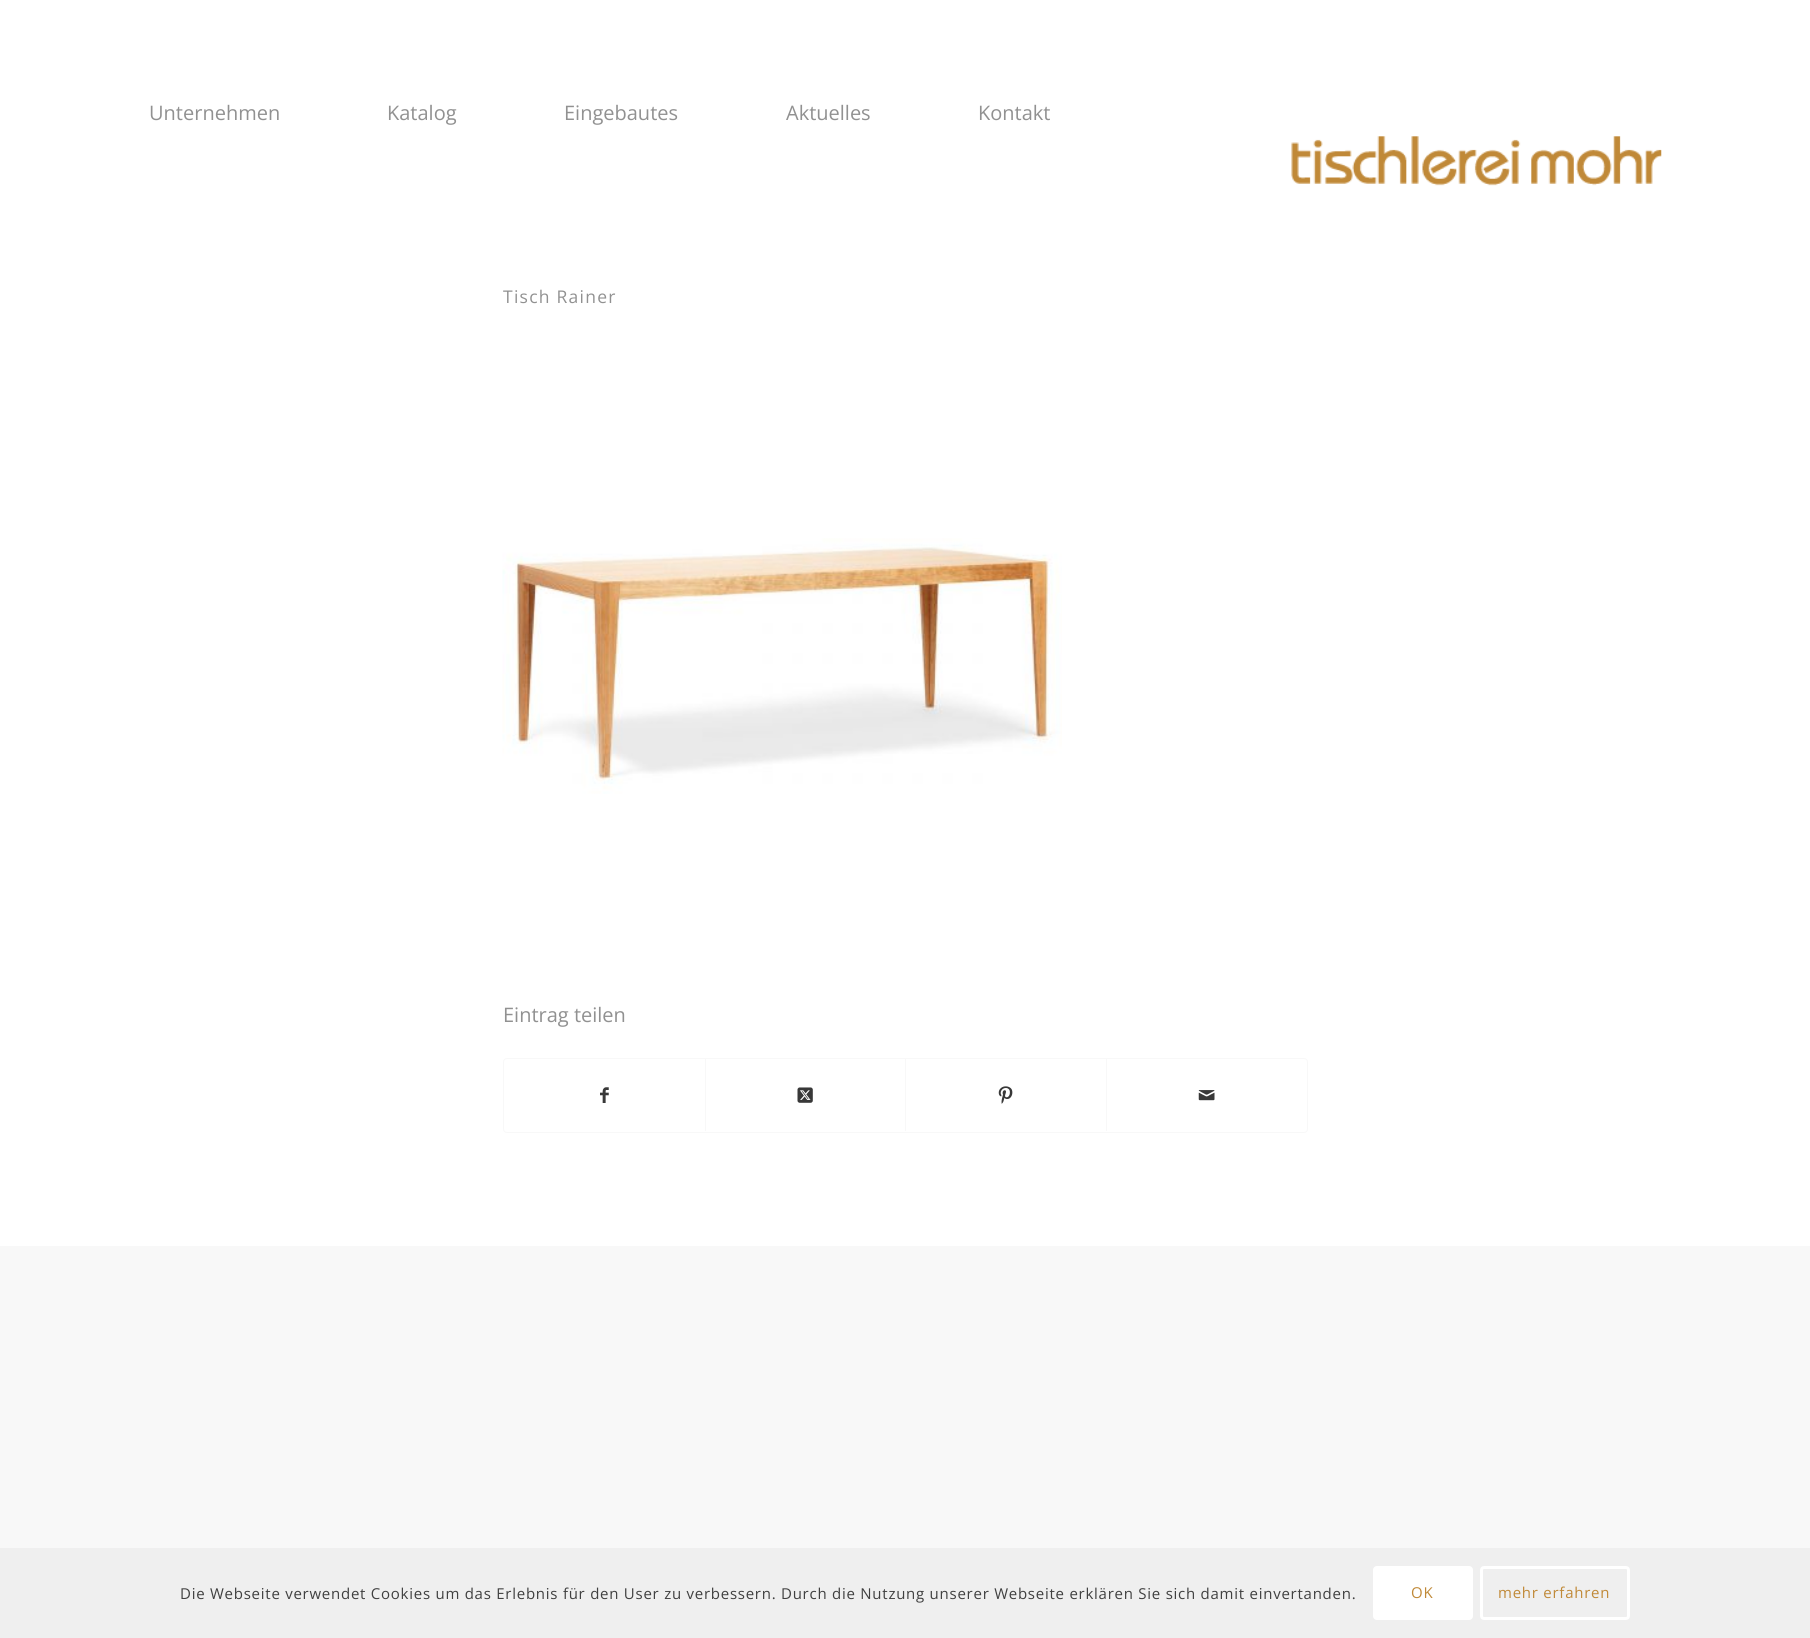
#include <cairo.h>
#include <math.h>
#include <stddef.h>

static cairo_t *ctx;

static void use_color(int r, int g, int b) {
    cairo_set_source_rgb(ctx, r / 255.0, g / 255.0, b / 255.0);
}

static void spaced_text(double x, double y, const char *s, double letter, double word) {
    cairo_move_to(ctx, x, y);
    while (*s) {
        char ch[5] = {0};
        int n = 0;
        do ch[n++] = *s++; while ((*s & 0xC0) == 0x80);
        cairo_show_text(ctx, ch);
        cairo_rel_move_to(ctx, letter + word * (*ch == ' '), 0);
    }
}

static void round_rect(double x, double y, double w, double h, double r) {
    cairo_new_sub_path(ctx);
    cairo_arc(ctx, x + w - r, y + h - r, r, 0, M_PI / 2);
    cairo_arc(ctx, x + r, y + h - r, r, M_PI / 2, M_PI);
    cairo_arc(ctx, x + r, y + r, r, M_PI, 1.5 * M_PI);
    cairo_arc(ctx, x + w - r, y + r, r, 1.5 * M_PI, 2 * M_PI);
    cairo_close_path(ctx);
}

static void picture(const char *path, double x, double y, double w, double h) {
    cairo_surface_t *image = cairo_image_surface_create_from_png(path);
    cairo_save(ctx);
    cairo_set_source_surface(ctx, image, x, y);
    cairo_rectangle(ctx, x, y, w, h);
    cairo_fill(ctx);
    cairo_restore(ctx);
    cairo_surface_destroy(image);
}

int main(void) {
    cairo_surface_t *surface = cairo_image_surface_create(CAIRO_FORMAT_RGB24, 1810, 1638);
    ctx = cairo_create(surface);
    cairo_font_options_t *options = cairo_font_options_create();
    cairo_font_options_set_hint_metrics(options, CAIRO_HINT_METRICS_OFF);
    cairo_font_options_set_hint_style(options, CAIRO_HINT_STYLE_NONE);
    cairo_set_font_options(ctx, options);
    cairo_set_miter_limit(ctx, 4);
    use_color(248, 248, 248);
    cairo_paint(ctx);
    use_color(255, 255, 255);
    cairo_rectangle(ctx, 0, 0, 1810, 1246);
    cairo_fill(ctx);
    cairo_select_font_face(ctx, "Open Sans", CAIRO_FONT_SLANT_NORMAL, CAIRO_FONT_WEIGHT_NORMAL);
    cairo_set_font_size(ctx, 20);
    use_color(145, 145, 145);
    cairo_move_to(ctx, 149, 120);
    cairo_show_text(ctx, "Unternehmen");
    cairo_move_to(ctx, 387, 120);
    cairo_show_text(ctx, "Katalog");
    cairo_move_to(ctx, 564, 120);
    cairo_show_text(ctx, "Eingebautes");
    cairo_move_to(ctx, 786, 120);
    cairo_show_text(ctx, "Aktuelles");
    cairo_move_to(ctx, 978, 120);
    cairo_show_text(ctx, "Kontakt");
    picture("img1.png", 1291, 136, 371, 50);
    cairo_set_font_size(ctx, 17.5);
    spaced_text(503, 303, "Tisch Rainer", 1.25, 0);
    picture("img2.png", 502, 538, 560, 256);
    cairo_set_font_size(ctx, 20);
    cairo_move_to(ctx, 503, 1022);
    cairo_show_text(ctx, "Eintrag teilen");
    round_rect(503.5, 1058.5, 804, 74, 3.5);
    use_color(248, 248, 248);
    cairo_set_line_width(ctx, 1);
    cairo_stroke(ctx);
    picture("img3.png", 600, 1087, 9, 16);
    cairo_rectangle(ctx, 705, 1059, 1, 72);
    cairo_fill(ctx);
    picture("img4.png", 797, 1087, 16, 16);
    cairo_rectangle(ctx, 905, 1059, 1, 72);
    cairo_fill(ctx);
    picture("img5.png", 998, 1086, 15, 18);
    cairo_rectangle(ctx, 1106, 1059, 1, 72);
    cairo_fill(ctx);
    picture("img6.png", 1198, 1090, 17, 11);
    use_color(239, 239, 239);
    cairo_rectangle(ctx, 0, 1548, 1810, 90);
    cairo_fill(ctx);
    cairo_set_font_size(ctx, 15);
    use_color(64, 64, 64);
    spaced_text(180, 1599, "Die Webseite verwendet Cookies um das Erlebnis für den User zu verbessern. Durch die Nutzung unserer Webseite erklären Sie sich damit einvertanden.", 0.75, 0);
    use_color(255, 255, 255);
    round_rect(1373, 1566, 100, 54, 4);
    cairo_fill(ctx);
    use_color(192, 137, 56);
    spaced_text(1411, 1598, "OK", 0.75, 0);
    round_rect(1481.5, 1567.5, 147, 51, 2.5);
    use_color(255, 255, 255);
    cairo_set_line_width(ctx, 3);
    cairo_stroke(ctx);
    use_color(192, 137, 56);
    spaced_text(1498, 1598, "mehr erfahren", 0.75, 0);
    cairo_surface_write_to_png(surface, "result.png");
    cairo_font_options_destroy(options);
    cairo_destroy(ctx);
    cairo_surface_destroy(surface);
    return 0;
}
